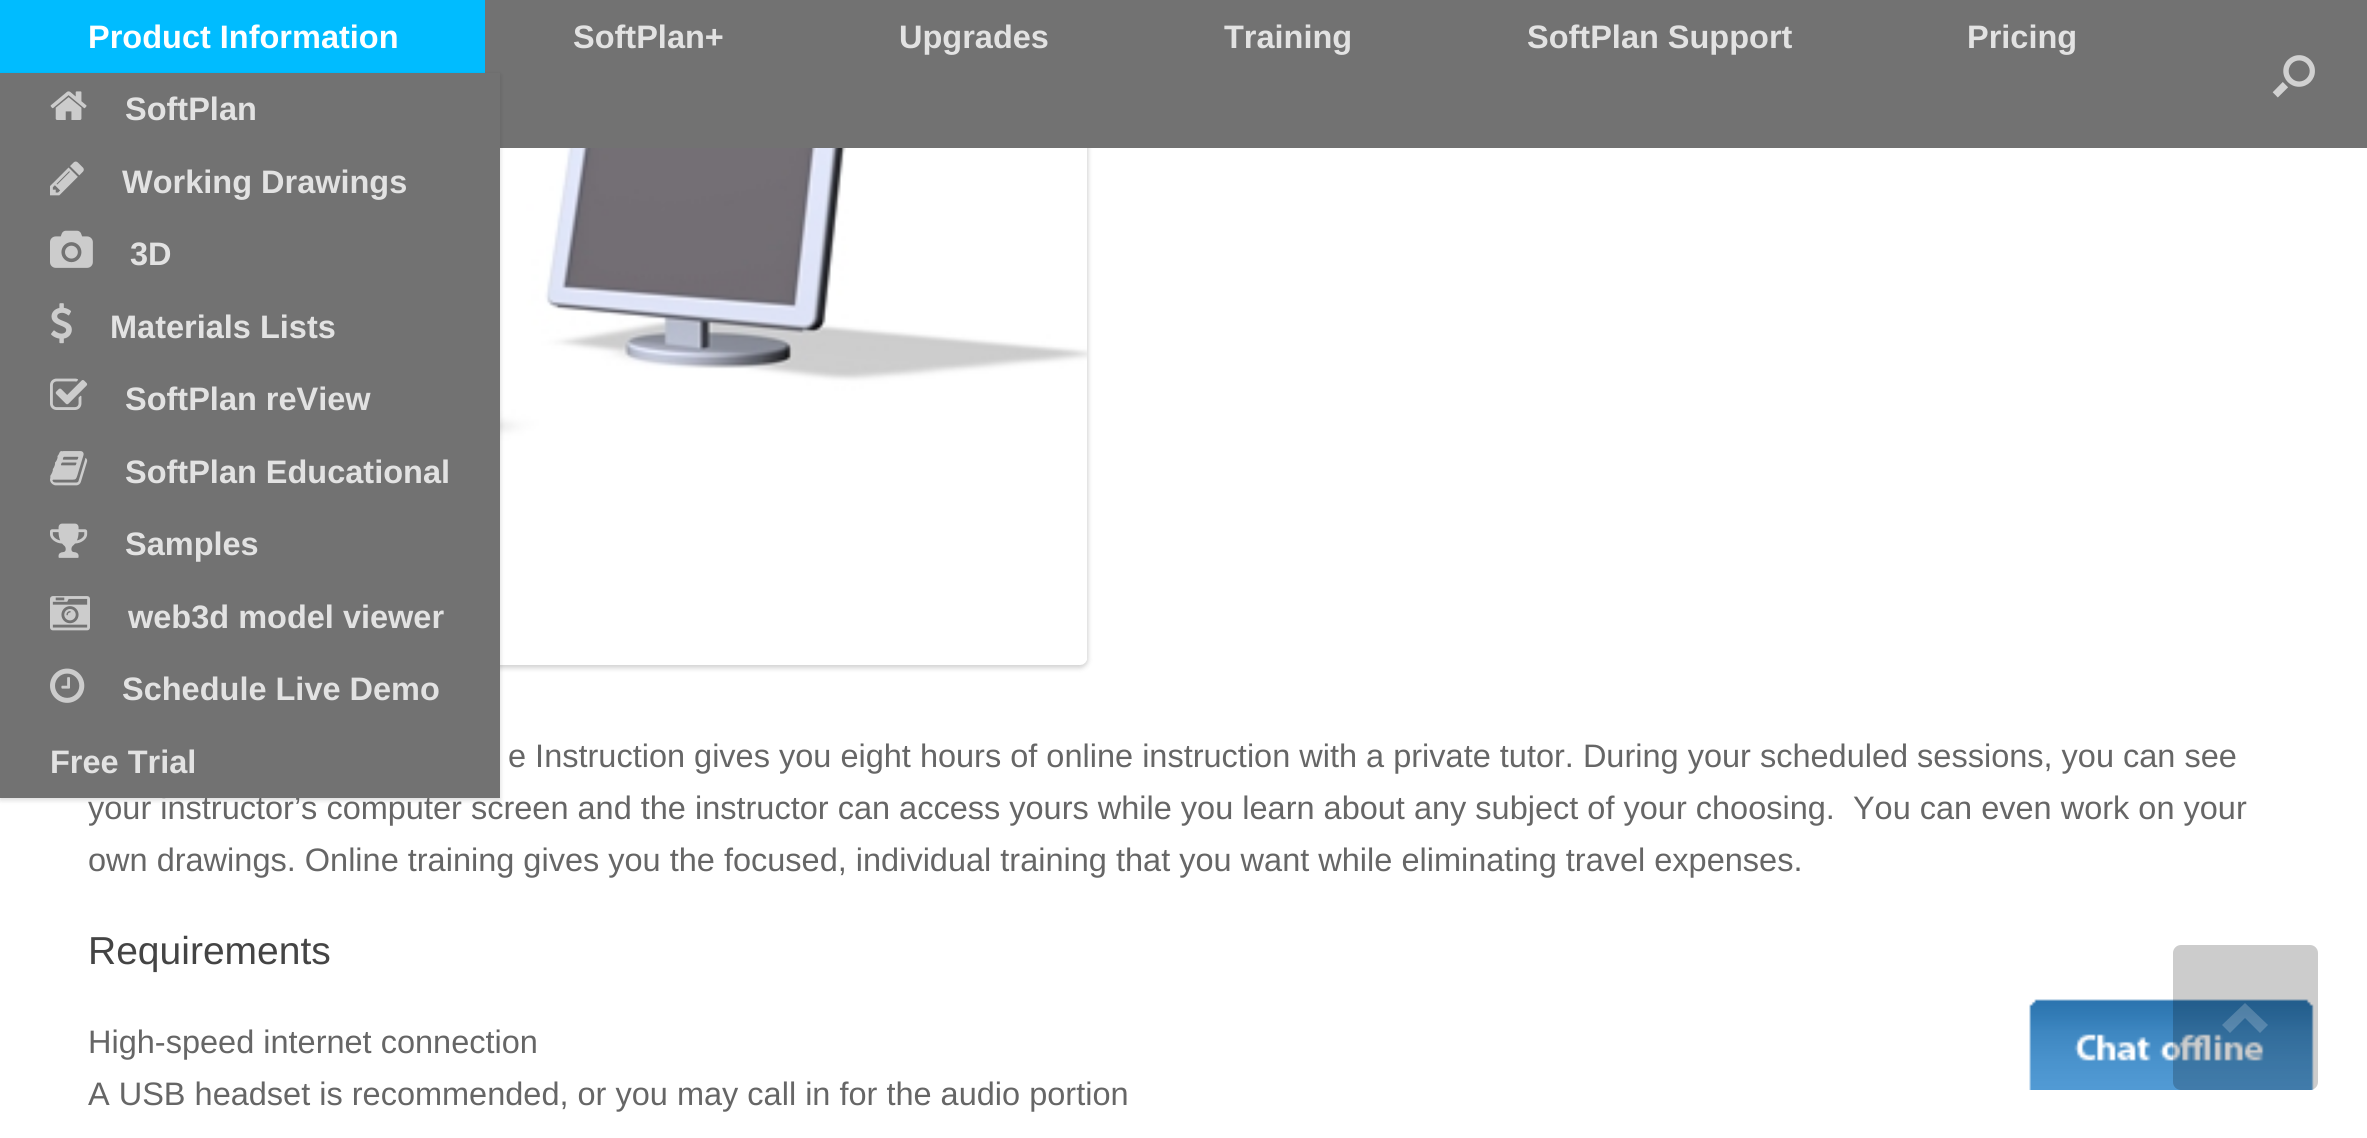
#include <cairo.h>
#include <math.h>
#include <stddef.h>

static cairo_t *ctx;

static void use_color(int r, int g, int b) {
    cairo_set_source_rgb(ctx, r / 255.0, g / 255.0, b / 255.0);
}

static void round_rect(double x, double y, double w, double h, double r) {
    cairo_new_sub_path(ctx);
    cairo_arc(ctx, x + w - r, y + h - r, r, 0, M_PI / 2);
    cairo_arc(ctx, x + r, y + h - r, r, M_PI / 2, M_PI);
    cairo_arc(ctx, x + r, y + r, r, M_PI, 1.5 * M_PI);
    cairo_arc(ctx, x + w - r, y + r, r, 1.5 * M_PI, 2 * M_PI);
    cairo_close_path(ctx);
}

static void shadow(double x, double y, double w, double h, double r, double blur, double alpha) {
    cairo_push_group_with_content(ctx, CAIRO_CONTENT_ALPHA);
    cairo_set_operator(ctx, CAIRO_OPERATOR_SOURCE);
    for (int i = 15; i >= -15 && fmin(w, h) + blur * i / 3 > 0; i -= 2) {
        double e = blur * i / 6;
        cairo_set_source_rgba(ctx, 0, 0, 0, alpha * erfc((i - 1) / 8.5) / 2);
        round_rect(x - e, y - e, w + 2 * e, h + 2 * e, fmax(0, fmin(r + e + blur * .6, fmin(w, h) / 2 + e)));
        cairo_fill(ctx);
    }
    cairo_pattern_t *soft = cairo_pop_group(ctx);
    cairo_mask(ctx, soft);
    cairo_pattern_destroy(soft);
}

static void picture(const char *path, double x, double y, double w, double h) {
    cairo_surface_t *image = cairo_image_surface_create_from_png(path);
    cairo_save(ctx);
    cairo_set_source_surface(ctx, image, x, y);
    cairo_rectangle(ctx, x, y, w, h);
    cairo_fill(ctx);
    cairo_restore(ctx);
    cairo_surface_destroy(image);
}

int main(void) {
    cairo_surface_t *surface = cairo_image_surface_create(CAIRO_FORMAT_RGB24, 2367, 1138);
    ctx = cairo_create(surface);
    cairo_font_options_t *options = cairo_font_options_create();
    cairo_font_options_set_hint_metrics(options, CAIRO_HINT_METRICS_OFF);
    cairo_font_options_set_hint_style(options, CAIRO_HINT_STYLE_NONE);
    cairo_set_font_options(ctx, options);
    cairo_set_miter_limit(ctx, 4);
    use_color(255, 255, 255);
    cairo_paint(ctx);
    use_color(0, 0, 0);
    shadow(88, -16, 1000, 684, 8, 2.5, 0.18);
    use_color(114, 114, 114);
    cairo_rectangle(ctx, 485, 0, 1882, 148);
    cairo_fill(ctx);
    use_color(0, 188, 255);
    cairo_rectangle(ctx, 0, 0, 485, 73);
    cairo_fill(ctx);
    cairo_select_font_face(ctx, "Liberation Sans", CAIRO_FONT_SLANT_NORMAL, CAIRO_FONT_WEIGHT_BOLD);
    cairo_set_font_size(ctx, 32.5);
    use_color(255, 255, 255);
    cairo_move_to(ctx, 88, 48);
    cairo_show_text(ctx, "Product Information");
    picture("img11.png", 500, 148, 587, 517);
    use_color(0, 0, 0);
    shadow(0, 75, 500, 725, 0, 2.5, 0.15);
    cairo_select_font_face(ctx, "Liberation Sans", CAIRO_FONT_SLANT_NORMAL, CAIRO_FONT_WEIGHT_NORMAL);
    use_color(102, 102, 102);
    cairo_move_to(ctx, 88, 819);
    cairo_show_text(ctx, "your instructor’s computer screen and the instructor can access yours while you learn about any subject of your choosing.  You can even work on your");
    use_color(114, 114, 114);
    cairo_rectangle(ctx, 0, 73, 500, 725);
    cairo_fill(ctx);
    picture("img1.png", 50, 91, 37, 29);
    cairo_select_font_face(ctx, "Liberation Sans", CAIRO_FONT_SLANT_NORMAL, CAIRO_FONT_WEIGHT_BOLD);
    use_color(226, 226, 226);
    cairo_move_to(ctx, 125, 120);
    cairo_show_text(ctx, "SoftPlan");
    picture("img2.png", 50, 161, 34, 35);
    cairo_move_to(ctx, 122, 193);
    cairo_show_text(ctx, "Working Drawings");
    picture("img3.png", 50, 230, 43, 38);
    cairo_move_to(ctx, 130, 265);
    cairo_show_text(ctx, "3D");
    picture("img4.png", 51, 303, 21, 41);
    cairo_move_to(ctx, 110, 338);
    cairo_show_text(ctx, "Materials Lists");
    picture("img5.png", 50, 378, 38, 32);
    cairo_move_to(ctx, 125, 410);
    cairo_show_text(ctx, "SoftPlan reView");
    picture("img6.png", 50, 451, 38, 35);
    cairo_move_to(ctx, 125, 483);
    cairo_show_text(ctx, "SoftPlan Educational");
    picture("img7.png", 50, 523, 38, 35);
    cairo_move_to(ctx, 125, 555);
    cairo_show_text(ctx, "Samples");
    picture("img8.png", 50, 596, 40, 35);
    cairo_move_to(ctx, 128, 628);
    cairo_show_text(ctx, "web3d model viewer");
    picture("img9.png", 50, 668, 35, 35);
    cairo_move_to(ctx, 122, 700);
    cairo_show_text(ctx, "Schedule Live Demo");
    cairo_move_to(ctx, 50, 773);
    cairo_show_text(ctx, "Free Trial");
    cairo_move_to(ctx, 573, 48);
    cairo_show_text(ctx, "SoftPlan+");
    cairo_move_to(ctx, 899, 48);
    cairo_show_text(ctx, "Upgrades");
    cairo_move_to(ctx, 1224, 48);
    cairo_show_text(ctx, "Training");
    cairo_move_to(ctx, 1527, 48);
    cairo_show_text(ctx, "SoftPlan Support");
    cairo_move_to(ctx, 1967, 48);
    cairo_show_text(ctx, "Pricing");
    picture("img10.png", 2272, 55, 43, 43);
    cairo_select_font_face(ctx, "Liberation Sans", CAIRO_FONT_SLANT_NORMAL, CAIRO_FONT_WEIGHT_NORMAL);
    use_color(102, 102, 102);
    cairo_move_to(ctx, 508, 767);
    cairo_show_text(ctx, "e Instruction gives you eight hours of online instruction with a private tutor. During your scheduled sessions, you can see");
    cairo_move_to(ctx, 88, 871);
    cairo_show_text(ctx, "own drawings. Online training gives you the focused, individual training that you want while eliminating travel expenses.");
    cairo_set_font_size(ctx, 39);
    use_color(68, 68, 68);
    cairo_move_to(ctx, 88, 964);
    cairo_show_text(ctx, "Requirements");
    cairo_set_font_size(ctx, 32.5);
    use_color(102, 102, 102);
    cairo_move_to(ctx, 88, 1053);
    cairo_show_text(ctx, "High-speed internet connection");
    cairo_move_to(ctx, 88, 1105);
    cairo_show_text(ctx, "A USB headset is recommended, or you may call in for the audio portion");
    picture("img12.png", 2029, 999, 285, 91);
    cairo_set_source_rgba(ctx, 0, 0, 0, 0.2);
    round_rect(2173, 945, 145, 145, 8);
    cairo_fill(ctx);
    cairo_set_source_rgba(ctx, 1, 1, 1, 0.2);
    cairo_new_path(ctx);
    cairo_move_to(ctx, 2268, 1025);
    cairo_line_to(ctx, 2245, 1003);
    cairo_line_to(ctx, 2222, 1025);
    cairo_line_to(ctx, 2230, 1033);
    cairo_line_to(ctx, 2245, 1018);
    cairo_line_to(ctx, 2260, 1033);
    cairo_close_path(ctx);
    cairo_fill(ctx);
    cairo_surface_write_to_png(surface, "result.png");
    cairo_font_options_destroy(options);
    cairo_destroy(ctx);
    cairo_surface_destroy(surface);
    return 0;
}
